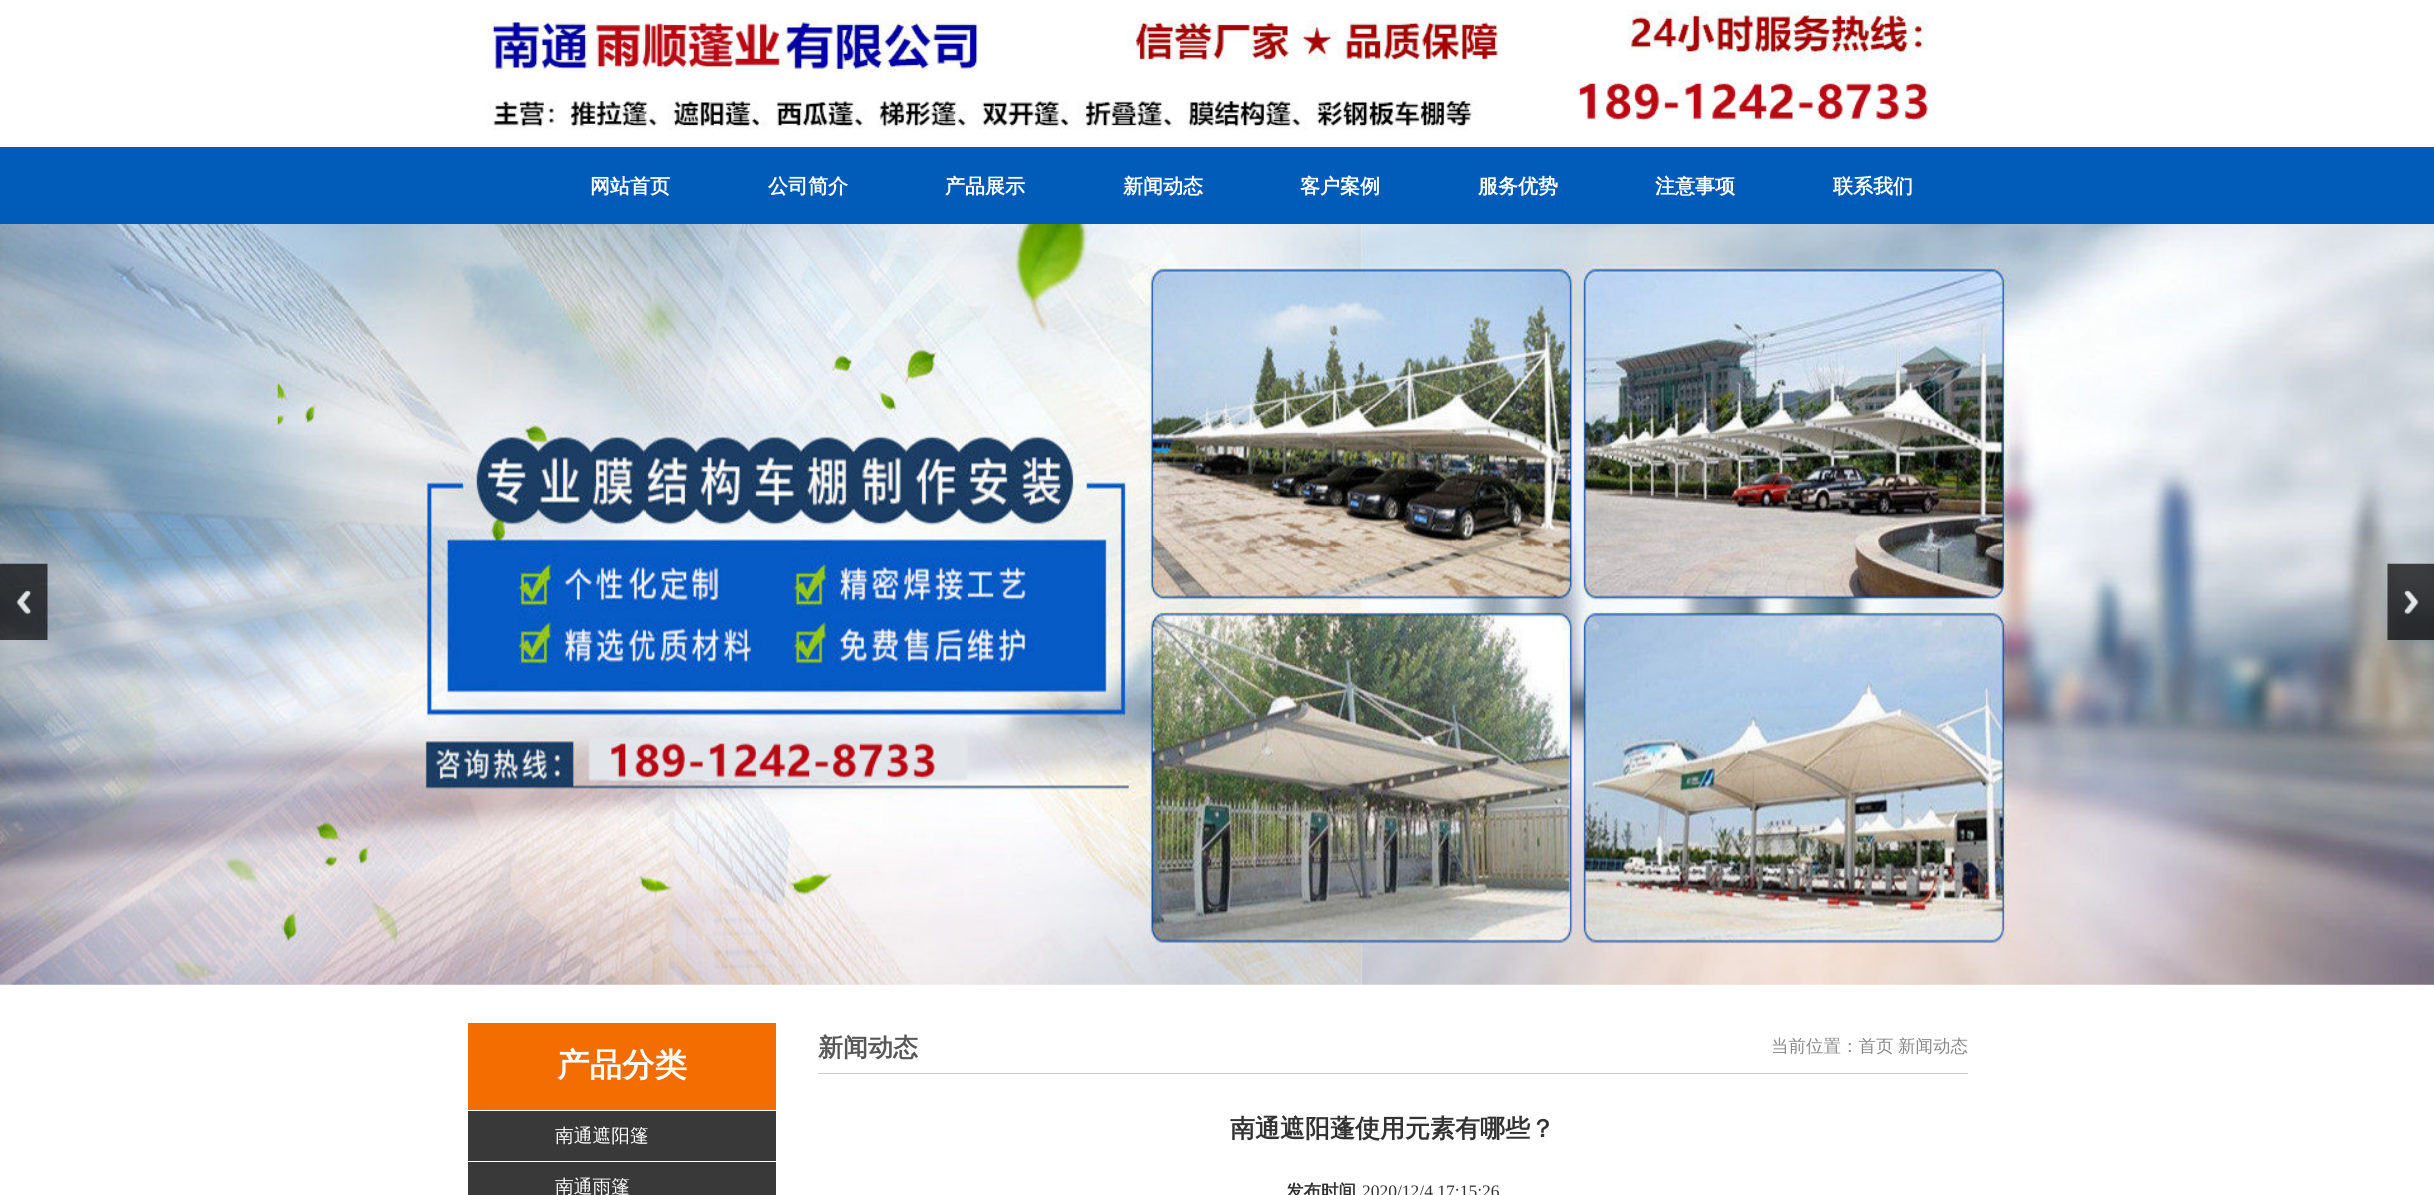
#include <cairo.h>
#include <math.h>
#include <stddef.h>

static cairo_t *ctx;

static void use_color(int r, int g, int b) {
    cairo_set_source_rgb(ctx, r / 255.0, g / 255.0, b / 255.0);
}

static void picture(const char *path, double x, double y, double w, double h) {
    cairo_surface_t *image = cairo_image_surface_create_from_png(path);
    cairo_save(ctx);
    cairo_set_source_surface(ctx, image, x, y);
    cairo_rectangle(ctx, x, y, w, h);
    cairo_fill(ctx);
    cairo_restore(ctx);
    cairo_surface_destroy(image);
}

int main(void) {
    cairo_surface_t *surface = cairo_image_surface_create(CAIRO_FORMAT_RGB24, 2434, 1195);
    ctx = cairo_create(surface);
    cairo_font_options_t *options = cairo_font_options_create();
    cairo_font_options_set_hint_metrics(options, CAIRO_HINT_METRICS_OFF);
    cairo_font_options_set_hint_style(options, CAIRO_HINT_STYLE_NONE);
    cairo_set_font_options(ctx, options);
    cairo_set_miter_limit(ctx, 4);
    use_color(255, 255, 255);
    cairo_paint(ctx);
    picture("img1.png", 487, 10, 1441, 120);
    use_color(0, 91, 185);
    cairo_rectangle(ctx, 0, 147, 2434, 77);
    cairo_fill(ctx);
    cairo_select_font_face(ctx, "WenQuanYi Zen Hei", CAIRO_FONT_SLANT_NORMAL, CAIRO_FONT_WEIGHT_BOLD);
    cairo_set_font_size(ctx, 20);
    use_color(255, 255, 255);
    cairo_move_to(ctx, 590, 193);
    cairo_show_text(ctx, "网站首页");
    cairo_move_to(ctx, 768, 193);
    cairo_show_text(ctx, "公司简介");
    cairo_move_to(ctx, 945, 193);
    cairo_show_text(ctx, "产品展示");
    cairo_move_to(ctx, 1123, 193);
    cairo_show_text(ctx, "新闻动态");
    cairo_move_to(ctx, 1300, 193);
    cairo_show_text(ctx, "客户案例");
    cairo_move_to(ctx, 1478, 193);
    cairo_show_text(ctx, "服务优势");
    cairo_move_to(ctx, 1655, 193);
    cairo_show_text(ctx, "注意事项");
    cairo_move_to(ctx, 1833, 193);
    cairo_show_text(ctx, "联系我们");
    picture("img2.png", 0, 224, 2434, 761);
    picture("img3.png", 0, 563, 48, 77);
    picture("img4.png", 2387, 563, 47, 77);
    use_color(57, 57, 57);
    cairo_rectangle(ctx, 468, 1111, 308, 84);
    cairo_fill(ctx);
    use_color(244, 109, 0);
    cairo_rectangle(ctx, 468, 1023, 308, 87);
    cairo_fill(ctx);
    cairo_set_font_size(ctx, 32.5);
    use_color(255, 255, 255);
    cairo_move_to(ctx, 557, 1076);
    cairo_show_text(ctx, "产品分类");
    cairo_rectangle(ctx, 468, 1161, 308, 1);
    cairo_fill(ctx);
    cairo_select_font_face(ctx, "WenQuanYi Zen Hei Medium", CAIRO_FONT_SLANT_NORMAL, CAIRO_FONT_WEIGHT_NORMAL);
    cairo_set_font_size(ctx, 18.75);
    cairo_move_to(ctx, 555, 1142);
    cairo_show_text(ctx, "南通遮阳篷");
    cairo_move_to(ctx, 555, 1193);
    cairo_show_text(ctx, "南通雨篷");
    use_color(204, 204, 204);
    cairo_rectangle(ctx, 818, 1073, 1150, 1);
    cairo_fill(ctx);
    cairo_select_font_face(ctx, "WenQuanYi Zen Hei", CAIRO_FONT_SLANT_NORMAL, CAIRO_FONT_WEIGHT_BOLD);
    cairo_set_font_size(ctx, 25);
    use_color(87, 87, 87);
    cairo_move_to(ctx, 818, 1056);
    cairo_show_text(ctx, "新闻动态");
    cairo_select_font_face(ctx, "WenQuanYi Zen Hei Medium", CAIRO_FONT_SLANT_NORMAL, CAIRO_FONT_WEIGHT_NORMAL);
    cairo_set_font_size(ctx, 17.5);
    use_color(136, 136, 136);
    cairo_move_to(ctx, 1771, 1052);
    cairo_show_text(ctx, "当前位置：首页");
    cairo_move_to(ctx, 1898, 1052);
    cairo_show_text(ctx, "新闻动态");
    cairo_select_font_face(ctx, "WenQuanYi Zen Hei", CAIRO_FONT_SLANT_NORMAL, CAIRO_FONT_WEIGHT_BOLD);
    cairo_set_font_size(ctx, 25);
    use_color(51, 51, 51);
    cairo_move_to(ctx, 1230, 1137);
    cairo_show_text(ctx, "南通遮阳蓬使用元素有哪些？");
    cairo_set_font_size(ctx, 17.5);
    cairo_move_to(ctx, 1286, 1197);
    cairo_show_text(ctx, "发布时间");
    cairo_select_font_face(ctx, "Liberation Serif", CAIRO_FONT_SLANT_NORMAL, CAIRO_FONT_WEIGHT_NORMAL);
    cairo_move_to(ctx, 1362, 1197);
    cairo_show_text(ctx, "2020/12/4 17:15:26");
    cairo_surface_write_to_png(surface, "result.png");
    cairo_font_options_destroy(options);
    cairo_destroy(ctx);
    cairo_surface_destroy(surface);
    return 0;
}
